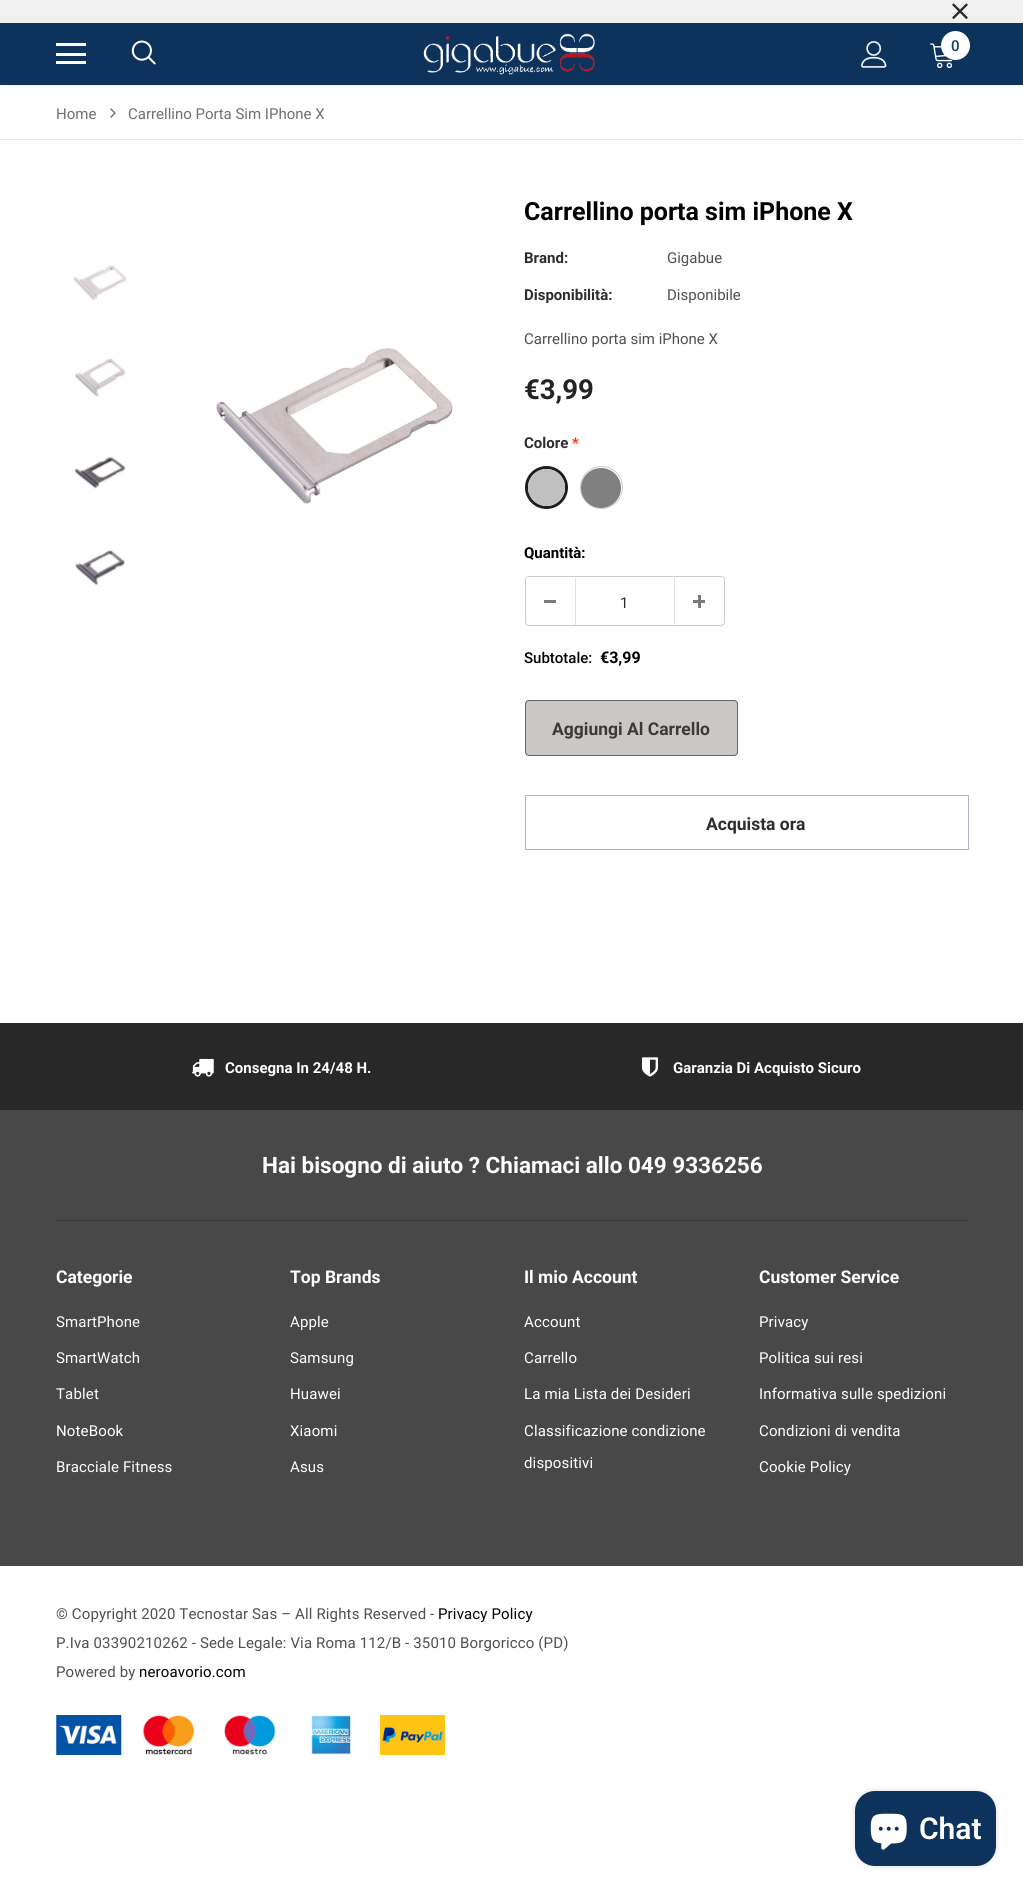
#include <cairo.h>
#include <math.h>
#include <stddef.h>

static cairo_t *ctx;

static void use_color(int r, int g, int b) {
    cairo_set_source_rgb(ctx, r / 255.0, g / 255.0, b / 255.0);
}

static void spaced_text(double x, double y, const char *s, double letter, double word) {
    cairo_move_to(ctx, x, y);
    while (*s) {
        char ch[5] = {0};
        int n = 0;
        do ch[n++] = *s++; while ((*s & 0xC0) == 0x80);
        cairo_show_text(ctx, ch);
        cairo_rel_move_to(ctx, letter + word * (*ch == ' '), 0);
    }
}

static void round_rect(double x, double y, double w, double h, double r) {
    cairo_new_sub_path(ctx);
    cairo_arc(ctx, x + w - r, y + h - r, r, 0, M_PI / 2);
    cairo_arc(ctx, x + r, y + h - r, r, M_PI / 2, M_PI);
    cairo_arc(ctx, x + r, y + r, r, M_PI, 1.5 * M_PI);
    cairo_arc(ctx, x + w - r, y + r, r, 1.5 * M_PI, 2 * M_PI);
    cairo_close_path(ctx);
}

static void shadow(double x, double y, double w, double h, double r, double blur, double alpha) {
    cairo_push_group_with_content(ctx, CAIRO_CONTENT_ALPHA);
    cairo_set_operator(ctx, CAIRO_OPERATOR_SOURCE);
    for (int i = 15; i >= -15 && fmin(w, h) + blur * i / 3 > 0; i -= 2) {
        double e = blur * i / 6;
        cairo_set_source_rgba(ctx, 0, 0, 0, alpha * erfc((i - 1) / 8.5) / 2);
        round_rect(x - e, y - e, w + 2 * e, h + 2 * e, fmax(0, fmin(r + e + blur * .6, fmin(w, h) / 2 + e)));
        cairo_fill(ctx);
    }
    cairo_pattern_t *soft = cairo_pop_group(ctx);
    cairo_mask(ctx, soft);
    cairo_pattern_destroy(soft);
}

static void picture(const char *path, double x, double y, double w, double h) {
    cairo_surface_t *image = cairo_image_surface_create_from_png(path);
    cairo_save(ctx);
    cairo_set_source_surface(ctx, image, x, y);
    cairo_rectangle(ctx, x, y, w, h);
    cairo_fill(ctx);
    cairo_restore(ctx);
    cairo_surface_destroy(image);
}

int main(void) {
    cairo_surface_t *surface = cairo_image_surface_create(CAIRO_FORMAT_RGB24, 1023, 1892);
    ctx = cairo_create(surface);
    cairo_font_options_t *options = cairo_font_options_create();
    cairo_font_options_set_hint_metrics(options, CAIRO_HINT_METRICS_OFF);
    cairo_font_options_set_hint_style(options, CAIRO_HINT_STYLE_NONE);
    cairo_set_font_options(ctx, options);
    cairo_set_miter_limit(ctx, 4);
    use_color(255, 255, 255);
    cairo_paint(ctx);
    use_color(240, 240, 240);
    cairo_rectangle(ctx, 0, 0, 1023, 23);
    cairo_fill(ctx);
    picture("img1.png", 952, 3, 16, 16);
    use_color(0, 0, 0);
    shadow(4, 30, 1016, 55, 0, 2, 0.12);
    use_color(13, 50, 92);
    cairo_rectangle(ctx, 0, 23, 1023, 62);
    cairo_fill(ctx);
    use_color(255, 255, 255);
    cairo_rectangle(ctx, 56, 43, 30, 3);
    cairo_fill(ctx);
    cairo_rectangle(ctx, 56, 53, 30, 3);
    cairo_fill(ctx);
    cairo_rectangle(ctx, 56, 61, 30, 3);
    cairo_fill(ctx);
    picture("img2.png", 131, 40, 25, 25);
    picture("img3.png", 423, 33, 172, 42);
    picture("img4.png", 861, 41, 26, 27);
    picture("img5.png", 930, 43, 23, 26);
    cairo_arc(ctx, 955.5, 45.5, 14.5, 0, 2 * M_PI);
    cairo_fill(ctx);
    cairo_select_font_face(ctx, "Roboto Medium", CAIRO_FONT_SLANT_NORMAL, CAIRO_FONT_WEIGHT_NORMAL);
    cairo_set_font_size(ctx, 15);
    use_color(22, 65, 102);
    cairo_move_to(ctx, 951, 51);
    cairo_show_text(ctx, "0");
    use_color(232, 234, 235);
    cairo_rectangle(ctx, 0, 139, 1023, 1);
    cairo_fill(ctx);
    cairo_select_font_face(ctx, "Roboto", CAIRO_FONT_SLANT_NORMAL, CAIRO_FONT_WEIGHT_NORMAL);
    use_color(108, 113, 117);
    cairo_move_to(ctx, 56, 119);
    cairo_show_text(ctx, "Home");
    picture("img6.png", 110, 108, 6, 10);
    cairo_move_to(ctx, 128, 119);
    cairo_show_text(ctx, "Carrellino Porta Sim IPhone X");
    picture("img7.png", 73, 265, 54, 36);
    picture("img8.png", 75, 358, 51, 39);
    picture("img9.png", 74, 456, 52, 33);
    picture("img10.png", 75, 550, 50, 36);
    picture("img11.png", 215, 348, 238, 156);
    cairo_select_font_face(ctx, "Roboto", CAIRO_FONT_SLANT_NORMAL, CAIRO_FONT_WEIGHT_BOLD);
    cairo_set_font_size(ctx, 25);
    use_color(0, 0, 0);
    cairo_move_to(ctx, 524, 220);
    cairo_show_text(ctx, "Carrellino porta sim iPhone X");
    cairo_set_font_size(ctx, 15);
    use_color(45, 45, 45);
    cairo_move_to(ctx, 524, 263);
    cairo_show_text(ctx, "Brand:");
    cairo_select_font_face(ctx, "Roboto", CAIRO_FONT_SLANT_NORMAL, CAIRO_FONT_WEIGHT_NORMAL);
    use_color(80, 80, 80);
    cairo_move_to(ctx, 667, 263);
    cairo_show_text(ctx, "Gigabue");
    cairo_select_font_face(ctx, "Roboto", CAIRO_FONT_SLANT_NORMAL, CAIRO_FONT_WEIGHT_BOLD);
    use_color(45, 45, 45);
    cairo_move_to(ctx, 524, 300);
    cairo_show_text(ctx, "Disponibilità:");
    cairo_select_font_face(ctx, "Roboto", CAIRO_FONT_SLANT_NORMAL, CAIRO_FONT_WEIGHT_NORMAL);
    use_color(80, 80, 80);
    cairo_move_to(ctx, 667, 300);
    cairo_show_text(ctx, "Disponibile");
    cairo_move_to(ctx, 524, 344);
    cairo_show_text(ctx, "Carrellino porta sim iPhone X");
    cairo_select_font_face(ctx, "Roboto", CAIRO_FONT_SLANT_NORMAL, CAIRO_FONT_WEIGHT_BOLD);
    cairo_set_font_size(ctx, 27.5);
    use_color(35, 35, 35);
    cairo_move_to(ctx, 524, 399);
    cairo_show_text(ctx, "€3,99");
    cairo_set_font_size(ctx, 15);
    use_color(45, 45, 45);
    cairo_move_to(ctx, 524, 448);
    cairo_show_text(ctx, "Colore");
    use_color(234, 59, 2);
    cairo_move_to(ctx, 572, 448);
    cairo_show_text(ctx, "*");
    cairo_new_path(ctx);
    cairo_arc(ctx, 546.5, 487.5, 20, 0, 2 * M_PI);
    use_color(30, 30, 30);
    cairo_set_line_width(ctx, 3);
    cairo_stroke(ctx);
    use_color(192, 192, 192);
    cairo_arc(ctx, 546.5, 487.5, 18.5, 0, 2 * M_PI);
    cairo_fill(ctx);
    cairo_arc(ctx, 601.5, 487.5, 21, 0, 2 * M_PI);
    use_color(204, 204, 204);
    cairo_set_line_width(ctx, 1);
    cairo_stroke(ctx);
    use_color(128, 128, 128);
    cairo_arc(ctx, 601, 488, 20, 0, 2 * M_PI);
    cairo_fill(ctx);
    use_color(0, 0, 0);
    cairo_move_to(ctx, 524, 558);
    cairo_show_text(ctx, "Quantità:");
    round_rect(525.5, 576.5, 199, 49, 3.5);
    use_color(204, 204, 204);
    cairo_stroke(ctx);
    use_color(227, 227, 227);
    cairo_rectangle(ctx, 575, 578, 1, 47);
    cairo_fill(ctx);
    use_color(123, 123, 123);
    cairo_rectangle(ctx, 544, 600, 12, 3);
    cairo_fill(ctx);
    cairo_select_font_face(ctx, "Roboto", CAIRO_FONT_SLANT_NORMAL, CAIRO_FONT_WEIGHT_NORMAL);
    use_color(45, 45, 45);
    cairo_move_to(ctx, 620, 608);
    cairo_show_text(ctx, "1");
    use_color(227, 227, 227);
    cairo_rectangle(ctx, 674, 578, 1, 47);
    cairo_fill(ctx);
    use_color(123, 123, 123);
    cairo_rectangle(ctx, 693, 600, 12, 3);
    cairo_fill(ctx);
    cairo_rectangle(ctx, 698, 595, 3, 13);
    cairo_fill(ctx);
    cairo_select_font_face(ctx, "Roboto Medium", CAIRO_FONT_SLANT_NORMAL, CAIRO_FONT_WEIGHT_NORMAL);
    use_color(0, 0, 0);
    cairo_move_to(ctx, 524, 663);
    cairo_show_text(ctx, "Subtotale:");
    cairo_select_font_face(ctx, "Roboto", CAIRO_FONT_SLANT_NORMAL, CAIRO_FONT_WEIGHT_BOLD);
    cairo_set_font_size(ctx, 16);
    cairo_move_to(ctx, 600, 663);
    cairo_show_text(ctx, "€3,99");
    use_color(204, 199, 199);
    round_rect(525.5, 700.5, 212, 55, 3.5);
    cairo_fill_preserve(ctx);
    use_color(98, 100, 104);
    cairo_stroke(ctx);
    cairo_set_font_size(ctx, 17.5);
    use_color(61, 57, 57);
    cairo_move_to(ctx, 552, 735);
    cairo_show_text(ctx, "Aggiungi Al Carrello");
    cairo_rectangle(ctx, 525.5, 795.5, 443, 54);
    use_color(172, 183, 193);
    cairo_stroke(ctx);
    use_color(45, 45, 45);
    cairo_move_to(ctx, 706, 830);
    cairo_show_text(ctx, "Acquista ora");
    use_color(40, 40, 40);
    cairo_rectangle(ctx, 0, 1023, 1023, 87);
    cairo_fill(ctx);
    picture("img12.png", 192, 1058, 22, 19);
    cairo_set_font_size(ctx, 15);
    use_color(255, 255, 255);
    cairo_move_to(ctx, 225, 1073);
    cairo_show_text(ctx, "Consegna In 24/48 H.");
    picture("img13.png", 641, 1057, 18, 20);
    cairo_move_to(ctx, 673, 1073);
    cairo_show_text(ctx, "Garanzia Di Acquisto Sicuro");
    use_color(72, 72, 72);
    cairo_rectangle(ctx, 0, 1110, 1023, 456);
    cairo_fill(ctx);
    use_color(57, 57, 57);
    cairo_rectangle(ctx, 56, 1220, 913, 1);
    cairo_fill(ctx);
    cairo_set_font_size(ctx, 22.5);
    use_color(255, 255, 255);
    cairo_move_to(ctx, 262, 1173);
    cairo_show_text(ctx, "Hai bisogno di aiuto ? Chiamaci allo 049 9336256");
    cairo_set_font_size(ctx, 17.5);
    cairo_move_to(ctx, 56, 1283);
    cairo_show_text(ctx, "Categorie");
    cairo_select_font_face(ctx, "Roboto", CAIRO_FONT_SLANT_NORMAL, CAIRO_FONT_WEIGHT_NORMAL);
    cairo_set_font_size(ctx, 15);
    spaced_text(56, 1327, "SmartPhone", 0.15, 0);
    spaced_text(56, 1363, "SmartWatch", 0.15, 0);
    spaced_text(56, 1399, "Tablet", 0.15, 0);
    spaced_text(56, 1436, "NoteBook", 0.15, 0);
    spaced_text(56, 1472, "Bracciale Fitness", 0.15, 0);
    cairo_select_font_face(ctx, "Roboto", CAIRO_FONT_SLANT_NORMAL, CAIRO_FONT_WEIGHT_BOLD);
    cairo_set_font_size(ctx, 17.5);
    cairo_move_to(ctx, 290, 1283);
    cairo_show_text(ctx, "Top Brands");
    cairo_select_font_face(ctx, "Roboto", CAIRO_FONT_SLANT_NORMAL, CAIRO_FONT_WEIGHT_NORMAL);
    cairo_set_font_size(ctx, 15);
    spaced_text(290, 1327, "Apple", 0.15, 0);
    spaced_text(290, 1363, "Samsung", 0.15, 0);
    spaced_text(290, 1399, "Huawei", 0.15, 0);
    spaced_text(290, 1436, "Xiaomi", 0.15, 0);
    spaced_text(290, 1472, "Asus", 0.15, 0);
    cairo_select_font_face(ctx, "Roboto", CAIRO_FONT_SLANT_NORMAL, CAIRO_FONT_WEIGHT_BOLD);
    cairo_set_font_size(ctx, 17.5);
    cairo_move_to(ctx, 524, 1283);
    cairo_show_text(ctx, "Il mio Account");
    cairo_select_font_face(ctx, "Roboto", CAIRO_FONT_SLANT_NORMAL, CAIRO_FONT_WEIGHT_NORMAL);
    cairo_set_font_size(ctx, 15);
    spaced_text(524, 1327, "Account", 0.15, 0);
    spaced_text(524, 1363, "Carrello", 0.15, 0);
    spaced_text(524, 1399, "La mia Lista dei Desideri", 0.15, 0);
    spaced_text(524, 1436, "Classificazione condizione", 0.15, 0);
    spaced_text(524, 1468, "dispositivi", 0.15, 0);
    cairo_select_font_face(ctx, "Roboto", CAIRO_FONT_SLANT_NORMAL, CAIRO_FONT_WEIGHT_BOLD);
    cairo_set_font_size(ctx, 17.5);
    cairo_move_to(ctx, 759, 1283);
    cairo_show_text(ctx, "Customer Service");
    cairo_select_font_face(ctx, "Roboto", CAIRO_FONT_SLANT_NORMAL, CAIRO_FONT_WEIGHT_NORMAL);
    cairo_set_font_size(ctx, 15);
    spaced_text(759, 1327, "Privacy", 0.15, 0);
    spaced_text(759, 1363, "Politica sui resi", 0.15, 0);
    spaced_text(759, 1399, "Informativa sulle spedizioni", 0.15, 0);
    spaced_text(759, 1436, "Condizioni di vendita", 0.15, 0);
    spaced_text(759, 1472, "Cookie Policy", 0.15, 0);
    use_color(80, 80, 80);
    spaced_text(56, 1619, "© Copyright 2020 Tecnostar Sas – All Rights Reserved -", 0.15, 0);
    use_color(0, 0, 0);
    spaced_text(438, 1619, "Privacy Policy", 0.15, 0);
    use_color(80, 80, 80);
    spaced_text(56, 1648, "P.Iva 03390210262 - Sede Legale: Via Roma 112/B - 35010 Borgoricco (PD)", 0.15, 0);
    spaced_text(56, 1677, "Powered by", 0.15, 0);
    use_color(0, 0, 0);
    spaced_text(139, 1677, "neroavorio.com", 0.15, 0);
    picture("img14.png", 56, 1715, 66, 40);
    picture("img15.png", 142, 1715, 53, 40);
    picture("img16.png", 224, 1715, 52, 40);
    picture("img17.png", 311, 1715, 40, 40);
    picture("img18.png", 380, 1715, 65, 40);
    use_color(0, 0, 0);
    shadow(855, 1791, 141, 75, 20, 3, 0.15);
    use_color(13, 50, 92);
    round_rect(855, 1791, 141, 75, 20);
    cairo_fill(ctx);
    picture("img19.png", 870, 1813, 37, 37);
    cairo_select_font_face(ctx, "Roboto SemiBold", CAIRO_FONT_SLANT_NORMAL, CAIRO_FONT_WEIGHT_NORMAL);
    cairo_set_font_size(ctx, 30);
    use_color(255, 255, 255);
    cairo_move_to(ctx, 919, 1839);
    cairo_show_text(ctx, "Chat");
    cairo_surface_write_to_png(surface, "result.png");
    cairo_font_options_destroy(options);
    cairo_destroy(ctx);
    cairo_surface_destroy(surface);
    return 0;
}
